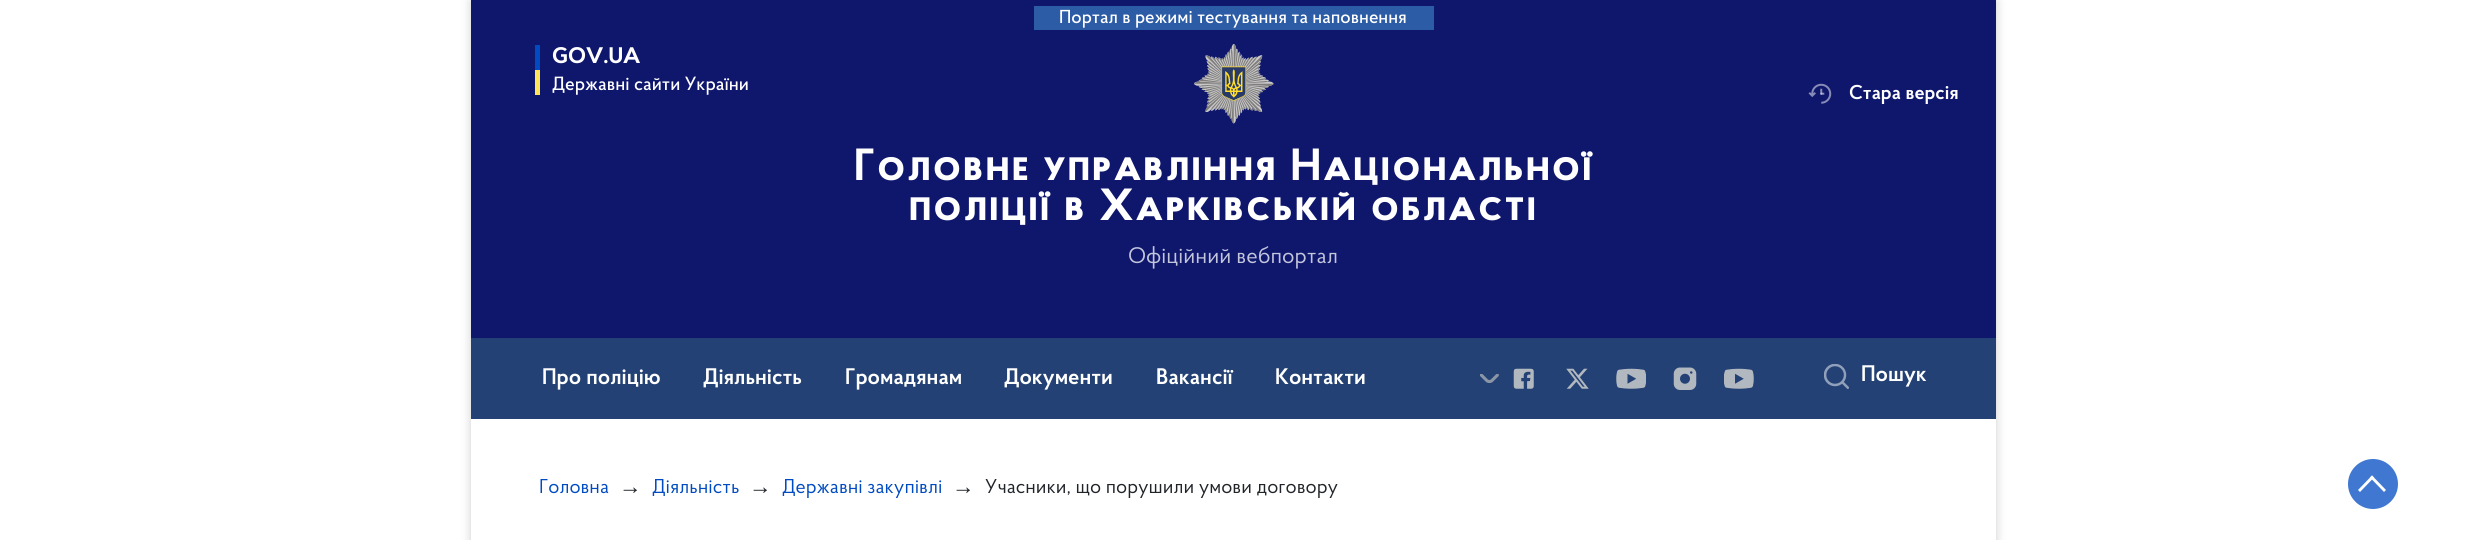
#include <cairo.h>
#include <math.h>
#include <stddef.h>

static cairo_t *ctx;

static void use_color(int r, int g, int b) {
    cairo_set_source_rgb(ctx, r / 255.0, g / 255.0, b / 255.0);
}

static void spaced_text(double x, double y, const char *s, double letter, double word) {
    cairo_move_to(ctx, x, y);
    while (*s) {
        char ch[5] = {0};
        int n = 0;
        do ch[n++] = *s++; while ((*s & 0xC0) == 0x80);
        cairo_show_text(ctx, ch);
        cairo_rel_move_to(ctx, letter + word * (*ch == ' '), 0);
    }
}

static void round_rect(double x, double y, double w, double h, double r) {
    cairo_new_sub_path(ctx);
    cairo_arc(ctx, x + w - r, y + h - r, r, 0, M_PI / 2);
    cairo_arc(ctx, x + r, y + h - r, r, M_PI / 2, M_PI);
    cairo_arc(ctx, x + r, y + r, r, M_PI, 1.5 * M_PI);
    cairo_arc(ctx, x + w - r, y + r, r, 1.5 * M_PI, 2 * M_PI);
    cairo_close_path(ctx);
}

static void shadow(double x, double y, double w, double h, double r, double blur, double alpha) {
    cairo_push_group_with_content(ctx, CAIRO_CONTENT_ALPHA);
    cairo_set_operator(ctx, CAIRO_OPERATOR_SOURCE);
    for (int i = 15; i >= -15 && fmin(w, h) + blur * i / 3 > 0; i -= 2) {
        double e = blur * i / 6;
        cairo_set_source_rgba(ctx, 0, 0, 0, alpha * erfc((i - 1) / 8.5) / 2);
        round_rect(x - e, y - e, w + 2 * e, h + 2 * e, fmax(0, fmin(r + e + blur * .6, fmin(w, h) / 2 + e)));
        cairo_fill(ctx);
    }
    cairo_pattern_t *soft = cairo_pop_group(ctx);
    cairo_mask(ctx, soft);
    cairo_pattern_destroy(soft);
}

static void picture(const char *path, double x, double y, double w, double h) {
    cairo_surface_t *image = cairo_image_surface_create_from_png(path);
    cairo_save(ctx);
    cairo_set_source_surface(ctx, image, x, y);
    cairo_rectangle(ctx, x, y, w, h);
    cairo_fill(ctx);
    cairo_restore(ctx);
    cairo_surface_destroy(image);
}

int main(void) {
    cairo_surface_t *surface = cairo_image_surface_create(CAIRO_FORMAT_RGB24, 2466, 540);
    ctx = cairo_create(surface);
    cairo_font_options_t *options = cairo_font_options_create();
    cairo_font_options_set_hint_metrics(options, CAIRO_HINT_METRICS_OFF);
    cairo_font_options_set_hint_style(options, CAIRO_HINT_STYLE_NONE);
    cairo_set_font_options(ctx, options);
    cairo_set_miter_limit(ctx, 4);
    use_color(255, 255, 255);
    cairo_paint(ctx);
    use_color(0, 0, 0);
    shadow(471, 1, 1525, 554, 0, 5, 0.2);
    use_color(255, 255, 255);
    cairo_rectangle(ctx, 471, 419, 1525, 121);
    cairo_fill(ctx);
    use_color(15, 23, 109);
    cairo_rectangle(ctx, 471, 0, 1525, 338);
    cairo_fill(ctx);
    use_color(45, 92, 166);
    cairo_rectangle(ctx, 1034, 6, 400, 24);
    cairo_fill(ctx);
    cairo_select_font_face(ctx, "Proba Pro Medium", CAIRO_FONT_SLANT_NORMAL, CAIRO_FONT_WEIGHT_NORMAL);
    cairo_set_font_size(ctx, 18.75);
    use_color(255, 255, 255);
    cairo_move_to(ctx, 1059, 23);
    cairo_show_text(ctx, "Портал в режимі тестування та наповнення");
    use_color(0, 75, 193);
    cairo_rectangle(ctx, 535, 45, 5, 25);
    cairo_fill(ctx);
    use_color(255, 227, 88);
    cairo_rectangle(ctx, 535, 70, 5, 25);
    cairo_fill(ctx);
    cairo_select_font_face(ctx, "Proba Pro", CAIRO_FONT_SLANT_NORMAL, CAIRO_FONT_WEIGHT_BOLD);
    cairo_set_font_size(ctx, 22.5);
    use_color(255, 255, 255);
    cairo_move_to(ctx, 552, 63);
    cairo_show_text(ctx, "GOV.UA");
    cairo_select_font_face(ctx, "Proba Pro Medium", CAIRO_FONT_SLANT_NORMAL, CAIRO_FONT_WEIGHT_NORMAL);
    cairo_set_font_size(ctx, 19.1);
    cairo_move_to(ctx, 552, 90);
    cairo_show_text(ctx, "Державні сайти України");
    picture("img1.png", 1808, 83, 24, 21);
    cairo_select_font_face(ctx, "Proba Pro SemiBold", CAIRO_FONT_SLANT_NORMAL, CAIRO_FONT_WEIGHT_NORMAL);
    cairo_set_font_size(ctx, 20);
    cairo_move_to(ctx, 1849, 99);
    cairo_show_text(ctx, "Стара версія");
    picture("img2.png", 1194, 44, 80, 80);
    cairo_select_font_face(ctx, "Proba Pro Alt", CAIRO_FONT_SLANT_NORMAL, CAIRO_FONT_WEIGHT_BOLD);
    cairo_set_font_size(ctx, 45);
    spaced_text(854, 180, "Головне управління Національної", 2.5, 0);
    spaced_text(909, 220, "поліції в Харківській області", 2.5, 0);
    cairo_select_font_face(ctx, "Proba Pro", CAIRO_FONT_SLANT_NORMAL, CAIRO_FONT_WEIGHT_NORMAL);
    cairo_set_font_size(ctx, 22.5);
    use_color(195, 197, 219);
    cairo_move_to(ctx, 1128, 263);
    cairo_show_text(ctx, "Офіційний вебпортал");
    use_color(35, 65, 116);
    cairo_rectangle(ctx, 471, 338, 1525, 81);
    cairo_fill(ctx);
    cairo_select_font_face(ctx, "Proba Pro SemiBold", CAIRO_FONT_SLANT_NORMAL, CAIRO_FONT_WEIGHT_NORMAL);
    use_color(255, 255, 255);
    cairo_move_to(ctx, 542, 384);
    cairo_show_text(ctx, "Про поліцію");
    cairo_move_to(ctx, 703, 384);
    cairo_show_text(ctx, "Діяльність");
    cairo_move_to(ctx, 845, 384);
    cairo_show_text(ctx, "Громадянам");
    cairo_move_to(ctx, 1004, 384);
    cairo_show_text(ctx, "Документи");
    cairo_move_to(ctx, 1156, 384);
    cairo_show_text(ctx, "Вакансії");
    cairo_move_to(ctx, 1275, 384);
    cairo_show_text(ctx, "Контакти");
    picture("img3.png", 1480, 374, 19, 9);
    picture("img4.png", 1513, 368, 21, 21);
    picture("img5.png", 1566, 368, 23, 21);
    picture("img6.png", 1616, 368, 30, 21);
    picture("img7.png", 1673, 367, 24, 23);
    picture("img8.png", 1724, 368, 30, 21);
    picture("img9.png", 1824, 364, 25, 25);
    cairo_move_to(ctx, 1861, 381);
    cairo_show_text(ctx, "Пошук");
    cairo_select_font_face(ctx, "Proba Pro", CAIRO_FONT_SLANT_NORMAL, CAIRO_FONT_WEIGHT_NORMAL);
    cairo_set_font_size(ctx, 20);
    use_color(0, 75, 193);
    cairo_move_to(ctx, 539, 493);
    cairo_show_text(ctx, "Головна");
    cairo_select_font_face(ctx, "Liberation Sans", CAIRO_FONT_SLANT_NORMAL, CAIRO_FONT_WEIGHT_NORMAL);
    cairo_set_font_size(ctx, 22.5);
    use_color(33, 37, 41);
    cairo_move_to(ctx, 619, 494);
    cairo_show_text(ctx, "→");
    cairo_select_font_face(ctx, "Proba Pro", CAIRO_FONT_SLANT_NORMAL, CAIRO_FONT_WEIGHT_NORMAL);
    cairo_set_font_size(ctx, 20);
    use_color(0, 75, 193);
    cairo_move_to(ctx, 652, 493);
    cairo_show_text(ctx, "Діяльність");
    cairo_select_font_face(ctx, "Liberation Sans", CAIRO_FONT_SLANT_NORMAL, CAIRO_FONT_WEIGHT_NORMAL);
    cairo_set_font_size(ctx, 22.5);
    use_color(33, 37, 41);
    cairo_move_to(ctx, 749, 494);
    cairo_show_text(ctx, "→");
    cairo_select_font_face(ctx, "Proba Pro", CAIRO_FONT_SLANT_NORMAL, CAIRO_FONT_WEIGHT_NORMAL);
    cairo_set_font_size(ctx, 20);
    use_color(0, 75, 193);
    cairo_move_to(ctx, 782, 493);
    cairo_show_text(ctx, "Державні закупівлі");
    cairo_select_font_face(ctx, "Liberation Sans", CAIRO_FONT_SLANT_NORMAL, CAIRO_FONT_WEIGHT_NORMAL);
    cairo_set_font_size(ctx, 22.5);
    use_color(33, 37, 41);
    cairo_move_to(ctx, 952, 494);
    cairo_show_text(ctx, "→");
    cairo_select_font_face(ctx, "Proba Pro", CAIRO_FONT_SLANT_NORMAL, CAIRO_FONT_WEIGHT_NORMAL);
    cairo_set_font_size(ctx, 20);
    cairo_move_to(ctx, 985, 493);
    cairo_show_text(ctx, "Учасники, що порушили умови договору");
    use_color(64, 120, 209);
    cairo_new_path(ctx);
    cairo_arc(ctx, 2373, 484, 25, 0, 2 * M_PI);
    cairo_fill(ctx);
    use_color(255, 255, 255);
    cairo_new_path(ctx);
    cairo_move_to(ctx, 2370, 477.5);
    cairo_line_to(ctx, 2372, 475.5);
    cairo_line_to(ctx, 2386, 490);
    cairo_line_to(ctx, 2384, 492);
    cairo_close_path(ctx);
    cairo_fill(ctx);
    cairo_new_path(ctx);
    cairo_move_to(ctx, 2372, 475.5);
    cairo_line_to(ctx, 2374, 477.5);
    cairo_line_to(ctx, 2360, 492);
    cairo_line_to(ctx, 2358, 490);
    cairo_close_path(ctx);
    cairo_fill(ctx);
    cairo_surface_write_to_png(surface, "result.png");
    cairo_font_options_destroy(options);
    cairo_destroy(ctx);
    cairo_surface_destroy(surface);
    return 0;
}
